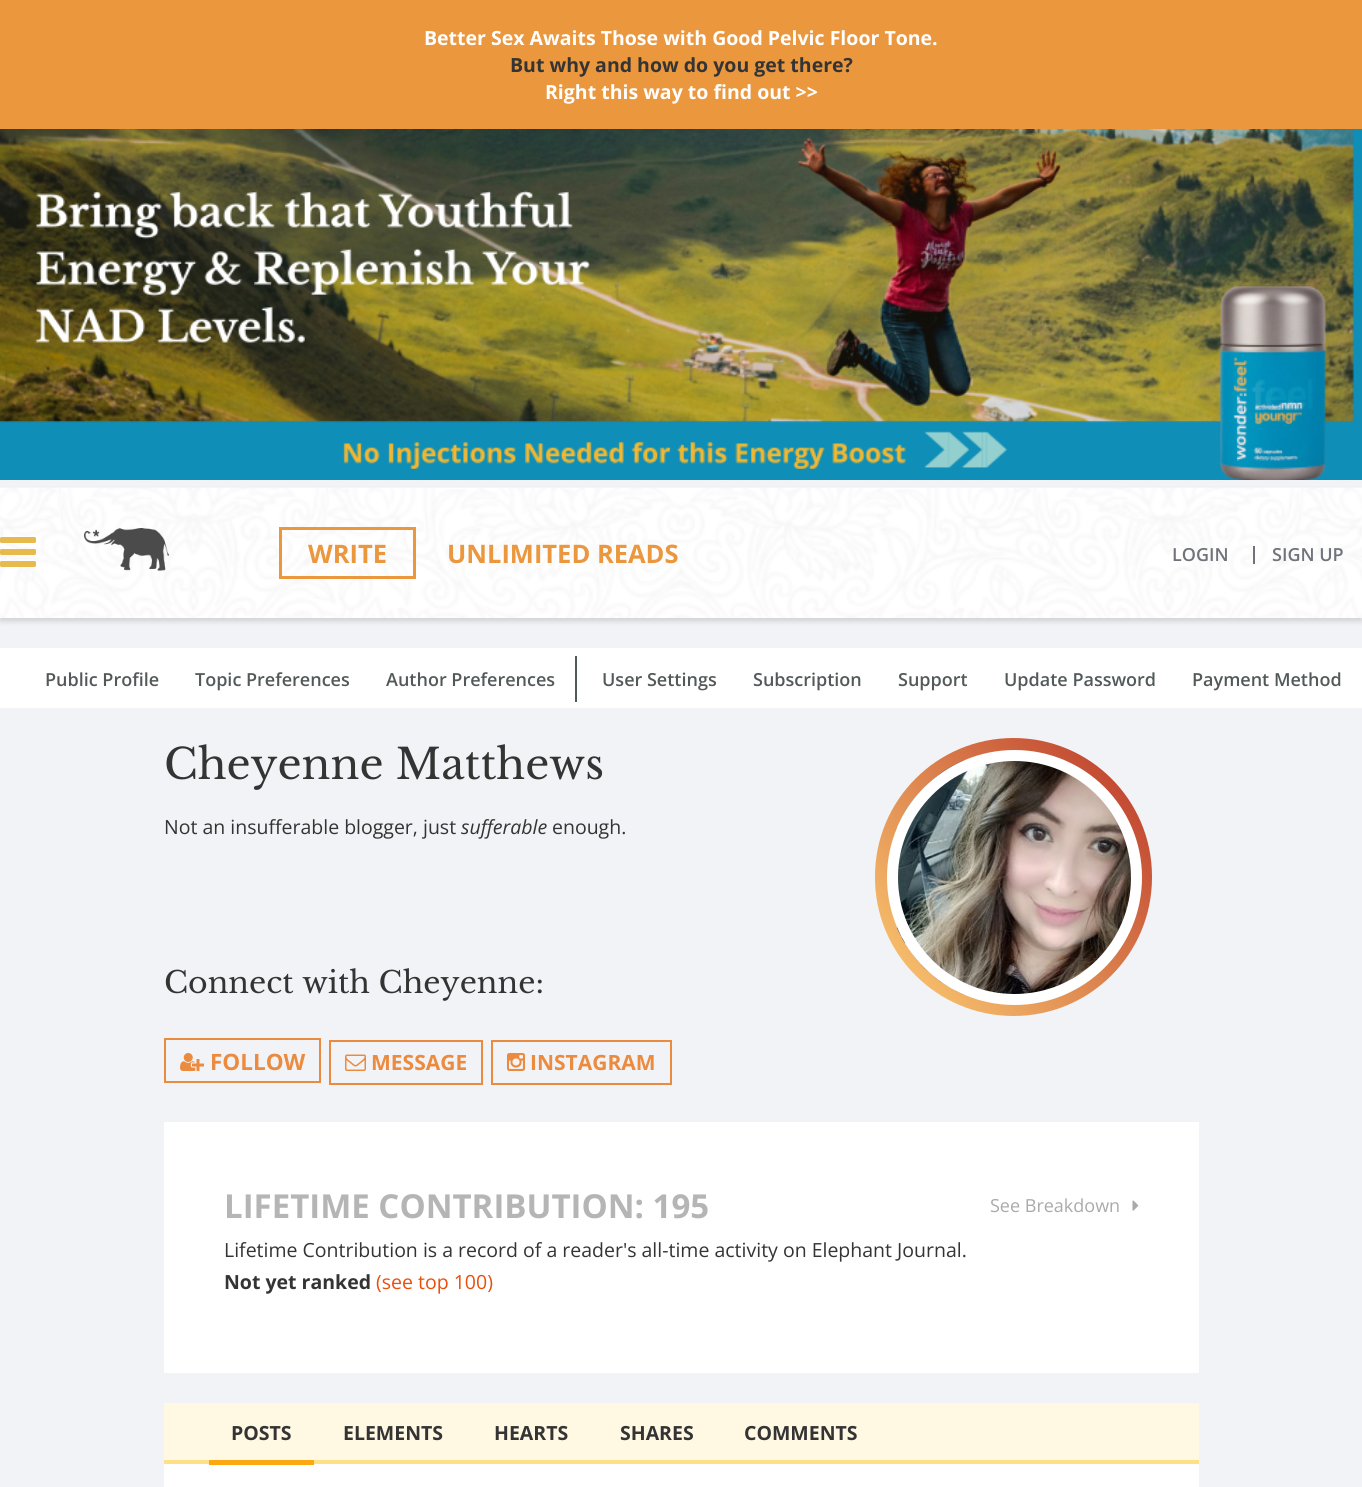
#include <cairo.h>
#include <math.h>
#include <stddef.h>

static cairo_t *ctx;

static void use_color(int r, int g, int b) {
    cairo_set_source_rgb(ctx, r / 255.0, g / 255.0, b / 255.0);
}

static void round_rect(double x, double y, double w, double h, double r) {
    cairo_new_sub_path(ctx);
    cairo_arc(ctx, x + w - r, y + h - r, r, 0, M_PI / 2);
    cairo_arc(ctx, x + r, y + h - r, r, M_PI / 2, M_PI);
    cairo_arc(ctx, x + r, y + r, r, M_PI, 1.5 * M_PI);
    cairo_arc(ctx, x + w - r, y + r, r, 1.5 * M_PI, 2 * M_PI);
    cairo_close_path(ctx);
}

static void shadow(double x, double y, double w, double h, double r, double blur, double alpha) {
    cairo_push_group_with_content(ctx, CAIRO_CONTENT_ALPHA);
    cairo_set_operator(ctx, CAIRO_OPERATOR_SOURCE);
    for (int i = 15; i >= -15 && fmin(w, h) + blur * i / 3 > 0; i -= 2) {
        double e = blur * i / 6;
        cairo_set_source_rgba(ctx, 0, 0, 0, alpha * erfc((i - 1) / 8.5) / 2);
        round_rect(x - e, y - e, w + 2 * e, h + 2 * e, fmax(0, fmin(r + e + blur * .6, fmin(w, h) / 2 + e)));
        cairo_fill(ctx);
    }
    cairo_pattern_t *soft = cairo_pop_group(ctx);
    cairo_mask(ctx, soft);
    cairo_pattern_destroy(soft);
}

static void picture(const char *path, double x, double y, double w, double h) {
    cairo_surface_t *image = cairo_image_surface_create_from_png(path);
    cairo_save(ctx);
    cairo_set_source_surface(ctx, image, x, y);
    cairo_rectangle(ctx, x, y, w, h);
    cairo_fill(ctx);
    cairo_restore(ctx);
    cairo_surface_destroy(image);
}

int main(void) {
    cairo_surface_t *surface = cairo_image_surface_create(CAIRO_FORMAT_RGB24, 1362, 1487);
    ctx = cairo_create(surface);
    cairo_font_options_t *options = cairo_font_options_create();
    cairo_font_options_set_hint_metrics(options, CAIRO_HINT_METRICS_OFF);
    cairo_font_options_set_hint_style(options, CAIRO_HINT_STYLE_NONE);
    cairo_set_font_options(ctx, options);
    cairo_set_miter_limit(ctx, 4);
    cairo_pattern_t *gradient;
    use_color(242, 243, 246);
    cairo_paint(ctx);
    use_color(234, 151, 62);
    cairo_rectangle(ctx, 0, 0, 1362, 129);
    cairo_fill(ctx);
    cairo_select_font_face(ctx, "Open Sans", CAIRO_FONT_SLANT_NORMAL, CAIRO_FONT_WEIGHT_BOLD);
    cairo_set_font_size(ctx, 19.5);
    use_color(255, 255, 255);
    cairo_move_to(ctx, 424, 45);
    cairo_show_text(ctx, "Better Sex Awaits Those with Good Pelvic Floor Tone.");
    use_color(52, 52, 52);
    cairo_move_to(ctx, 510, 72);
    cairo_show_text(ctx, "But why and how do you get there?");
    use_color(255, 255, 255);
    cairo_move_to(ctx, 545, 99);
    cairo_show_text(ctx, "Right this way to find out >>");
    picture("img1.png", 0, 129, 1362, 351);
    use_color(0, 0, 0);
    shadow(0, 491, 1362, 130, 0, 3, 0.15);
    picture("img2.png", 0, 487, 1362, 131);
    picture("img3.png", 0, 537, 36, 30);
    picture("img4.png", 84, 528, 85, 43);
    cairo_rectangle(ctx, 280.5, 528.5, 134, 49);
    use_color(234, 151, 62);
    cairo_set_line_width(ctx, 3);
    cairo_stroke(ctx);
    cairo_set_font_size(ctx, 25.5);
    cairo_move_to(ctx, 308, 563);
    cairo_show_text(ctx, "WRITE");
    cairo_move_to(ctx, 447, 563);
    cairo_show_text(ctx, "UNLIMITED READS");
    cairo_select_font_face(ctx, "Open Sans SemiBold", CAIRO_FONT_SLANT_NORMAL, CAIRO_FONT_WEIGHT_NORMAL);
    cairo_set_font_size(ctx, 18);
    use_color(112, 115, 122);
    cairo_move_to(ctx, 1172, 561);
    cairo_show_text(ctx, "LOGIN");
    cairo_rectangle(ctx, 1253, 546, 2, 18);
    cairo_fill(ctx);
    cairo_move_to(ctx, 1272, 561);
    cairo_show_text(ctx, "SIGN UP");
    use_color(255, 255, 255);
    cairo_rectangle(ctx, 0, 648, 1362, 60);
    cairo_fill(ctx);
    use_color(83, 89, 89);
    cairo_move_to(ctx, 45, 686);
    cairo_show_text(ctx, "Public Profile");
    cairo_move_to(ctx, 195, 686);
    cairo_show_text(ctx, "Topic Preferences");
    cairo_rectangle(ctx, 575, 656, 2, 46);
    cairo_fill(ctx);
    cairo_move_to(ctx, 386, 686);
    cairo_show_text(ctx, "Author Preferences");
    cairo_move_to(ctx, 602, 686);
    cairo_show_text(ctx, "User Settings");
    cairo_move_to(ctx, 753, 686);
    cairo_show_text(ctx, "Subscription");
    cairo_move_to(ctx, 898, 686);
    cairo_show_text(ctx, "Support");
    cairo_move_to(ctx, 1004, 686);
    cairo_show_text(ctx, "Update Password");
    cairo_move_to(ctx, 1192, 686);
    cairo_show_text(ctx, "Payment Method");
    cairo_select_font_face(ctx, "Libre Baskerville", CAIRO_FONT_SLANT_NORMAL, CAIRO_FONT_WEIGHT_NORMAL);
    cairo_set_font_size(ctx, 42);
    use_color(52, 52, 52);
    cairo_move_to(ctx, 164, 779);
    cairo_show_text(ctx, "Cheyenne Matthews");
    cairo_select_font_face(ctx, "Open Sans", CAIRO_FONT_SLANT_NORMAL, CAIRO_FONT_WEIGHT_NORMAL);
    cairo_set_font_size(ctx, 19.5);
    cairo_move_to(ctx, 164, 834);
    cairo_show_text(ctx, "Not an insufferable blogger, just");
    cairo_select_font_face(ctx, "Open Sans", CAIRO_FONT_SLANT_ITALIC, CAIRO_FONT_WEIGHT_NORMAL);
    cairo_move_to(ctx, 461, 834);
    cairo_show_text(ctx, "sufferable");
    cairo_select_font_face(ctx, "Open Sans", CAIRO_FONT_SLANT_NORMAL, CAIRO_FONT_WEIGHT_NORMAL);
    cairo_move_to(ctx, 552, 834);
    cairo_show_text(ctx, "enough.");
    gradient = cairo_pattern_create_linear(864, 1002, 1163, 751);
    cairo_pattern_add_color_stop_rgba(gradient, 0, 1, 0.82, 0.455, 1);
    cairo_pattern_add_color_stop_rgba(gradient, 1, 0.725, 0.204, 0.157, 1);
    cairo_set_source(ctx, gradient);
    cairo_pattern_destroy(gradient);
    round_rect(875, 738, 277, 278, 138.5);
    cairo_fill(ctx);
    picture("img5.png", 897, 760, 234, 235);
    cairo_arc(ctx, 1014.5, 877.5, 122, 0, 2 * M_PI);
    use_color(255, 255, 255);
    cairo_set_line_width(ctx, 11);
    cairo_stroke(ctx);
    cairo_select_font_face(ctx, "Libre Baskerville", CAIRO_FONT_SLANT_NORMAL, CAIRO_FONT_WEIGHT_NORMAL);
    cairo_set_font_size(ctx, 30);
    use_color(52, 52, 52);
    cairo_move_to(ctx, 164, 993);
    cairo_show_text(ctx, "Connect with Cheyenne:");
    cairo_rectangle(ctx, 165, 1039, 155, 43);
    use_color(235, 139, 64);
    cairo_set_line_width(ctx, 2);
    cairo_stroke(ctx);
    picture("img6.png", 180, 1053, 24, 18);
    cairo_select_font_face(ctx, "Open Sans", CAIRO_FONT_SLANT_NORMAL, CAIRO_FONT_WEIGHT_BOLD);
    cairo_set_font_size(ctx, 22.5);
    cairo_move_to(ctx, 210, 1070);
    cairo_show_text(ctx, "FOLLOW");
    cairo_rectangle(ctx, 330, 1041, 152, 43);
    cairo_stroke(ctx);
    picture("img7.png", 345, 1054, 21, 17);
    cairo_set_font_size(ctx, 21);
    cairo_move_to(ctx, 371, 1070);
    cairo_show_text(ctx, "MESSAGE");
    cairo_rectangle(ctx, 492, 1041, 179, 43);
    cairo_stroke(ctx);
    picture("img8.png", 507, 1053, 18, 18);
    cairo_move_to(ctx, 530, 1070);
    cairo_show_text(ctx, "INSTAGRAM");
    use_color(255, 255, 255);
    cairo_rectangle(ctx, 164, 1122, 1035, 251);
    cairo_fill(ctx);
    cairo_set_font_size(ctx, 33);
    use_color(182, 181, 181);
    cairo_move_to(ctx, 224, 1218);
    cairo_show_text(ctx, "LIFETIME CONTRIBUTION: 195");
    cairo_select_font_face(ctx, "Open Sans", CAIRO_FONT_SLANT_NORMAL, CAIRO_FONT_WEIGHT_NORMAL);
    cairo_set_font_size(ctx, 18);
    use_color(170, 170, 170);
    cairo_move_to(ctx, 990, 1212);
    cairo_show_text(ctx, "See Breakdown");
    picture("img9.png", 1132, 1200, 7, 11);
    cairo_set_font_size(ctx, 19.5);
    use_color(52, 52, 52);
    cairo_move_to(ctx, 224, 1257);
    cairo_show_text(ctx, "Lifetime Contribution is a record of a reader's all-time activity on Elephant Journal.");
    cairo_select_font_face(ctx, "Open Sans", CAIRO_FONT_SLANT_NORMAL, CAIRO_FONT_WEIGHT_BOLD);
    cairo_move_to(ctx, 224, 1289);
    cairo_show_text(ctx, "Not yet ranked");
    cairo_select_font_face(ctx, "Open Sans", CAIRO_FONT_SLANT_NORMAL, CAIRO_FONT_WEIGHT_NORMAL);
    use_color(233, 79, 11);
    cairo_move_to(ctx, 376, 1289);
    cairo_show_text(ctx, "(see top 100)");
    use_color(255, 248, 226);
    cairo_rectangle(ctx, 164, 1403, 1035, 57);
    cairo_fill(ctx);
    use_color(255, 223, 135);
    cairo_rectangle(ctx, 164, 1460, 1035, 4);
    cairo_fill(ctx);
    use_color(255, 255, 255);
    cairo_rectangle(ctx, 164, 1464, 1035, 23);
    cairo_fill(ctx);
    use_color(252, 168, 18);
    cairo_rectangle(ctx, 209, 1460, 105, 5);
    cairo_fill(ctx);
    cairo_select_font_face(ctx, "Open Sans", CAIRO_FONT_SLANT_NORMAL, CAIRO_FONT_WEIGHT_BOLD);
    use_color(52, 52, 52);
    cairo_move_to(ctx, 231, 1440);
    cairo_show_text(ctx, "POSTS");
    cairo_move_to(ctx, 343, 1440);
    cairo_show_text(ctx, "ELEMENTS");
    cairo_move_to(ctx, 494, 1440);
    cairo_show_text(ctx, "HEARTS");
    cairo_move_to(ctx, 620, 1440);
    cairo_show_text(ctx, "SHARES");
    cairo_move_to(ctx, 744, 1440);
    cairo_show_text(ctx, "COMMENTS");
    cairo_surface_write_to_png(surface, "result.png");
    cairo_font_options_destroy(options);
    cairo_destroy(ctx);
    cairo_surface_destroy(surface);
    return 0;
}
